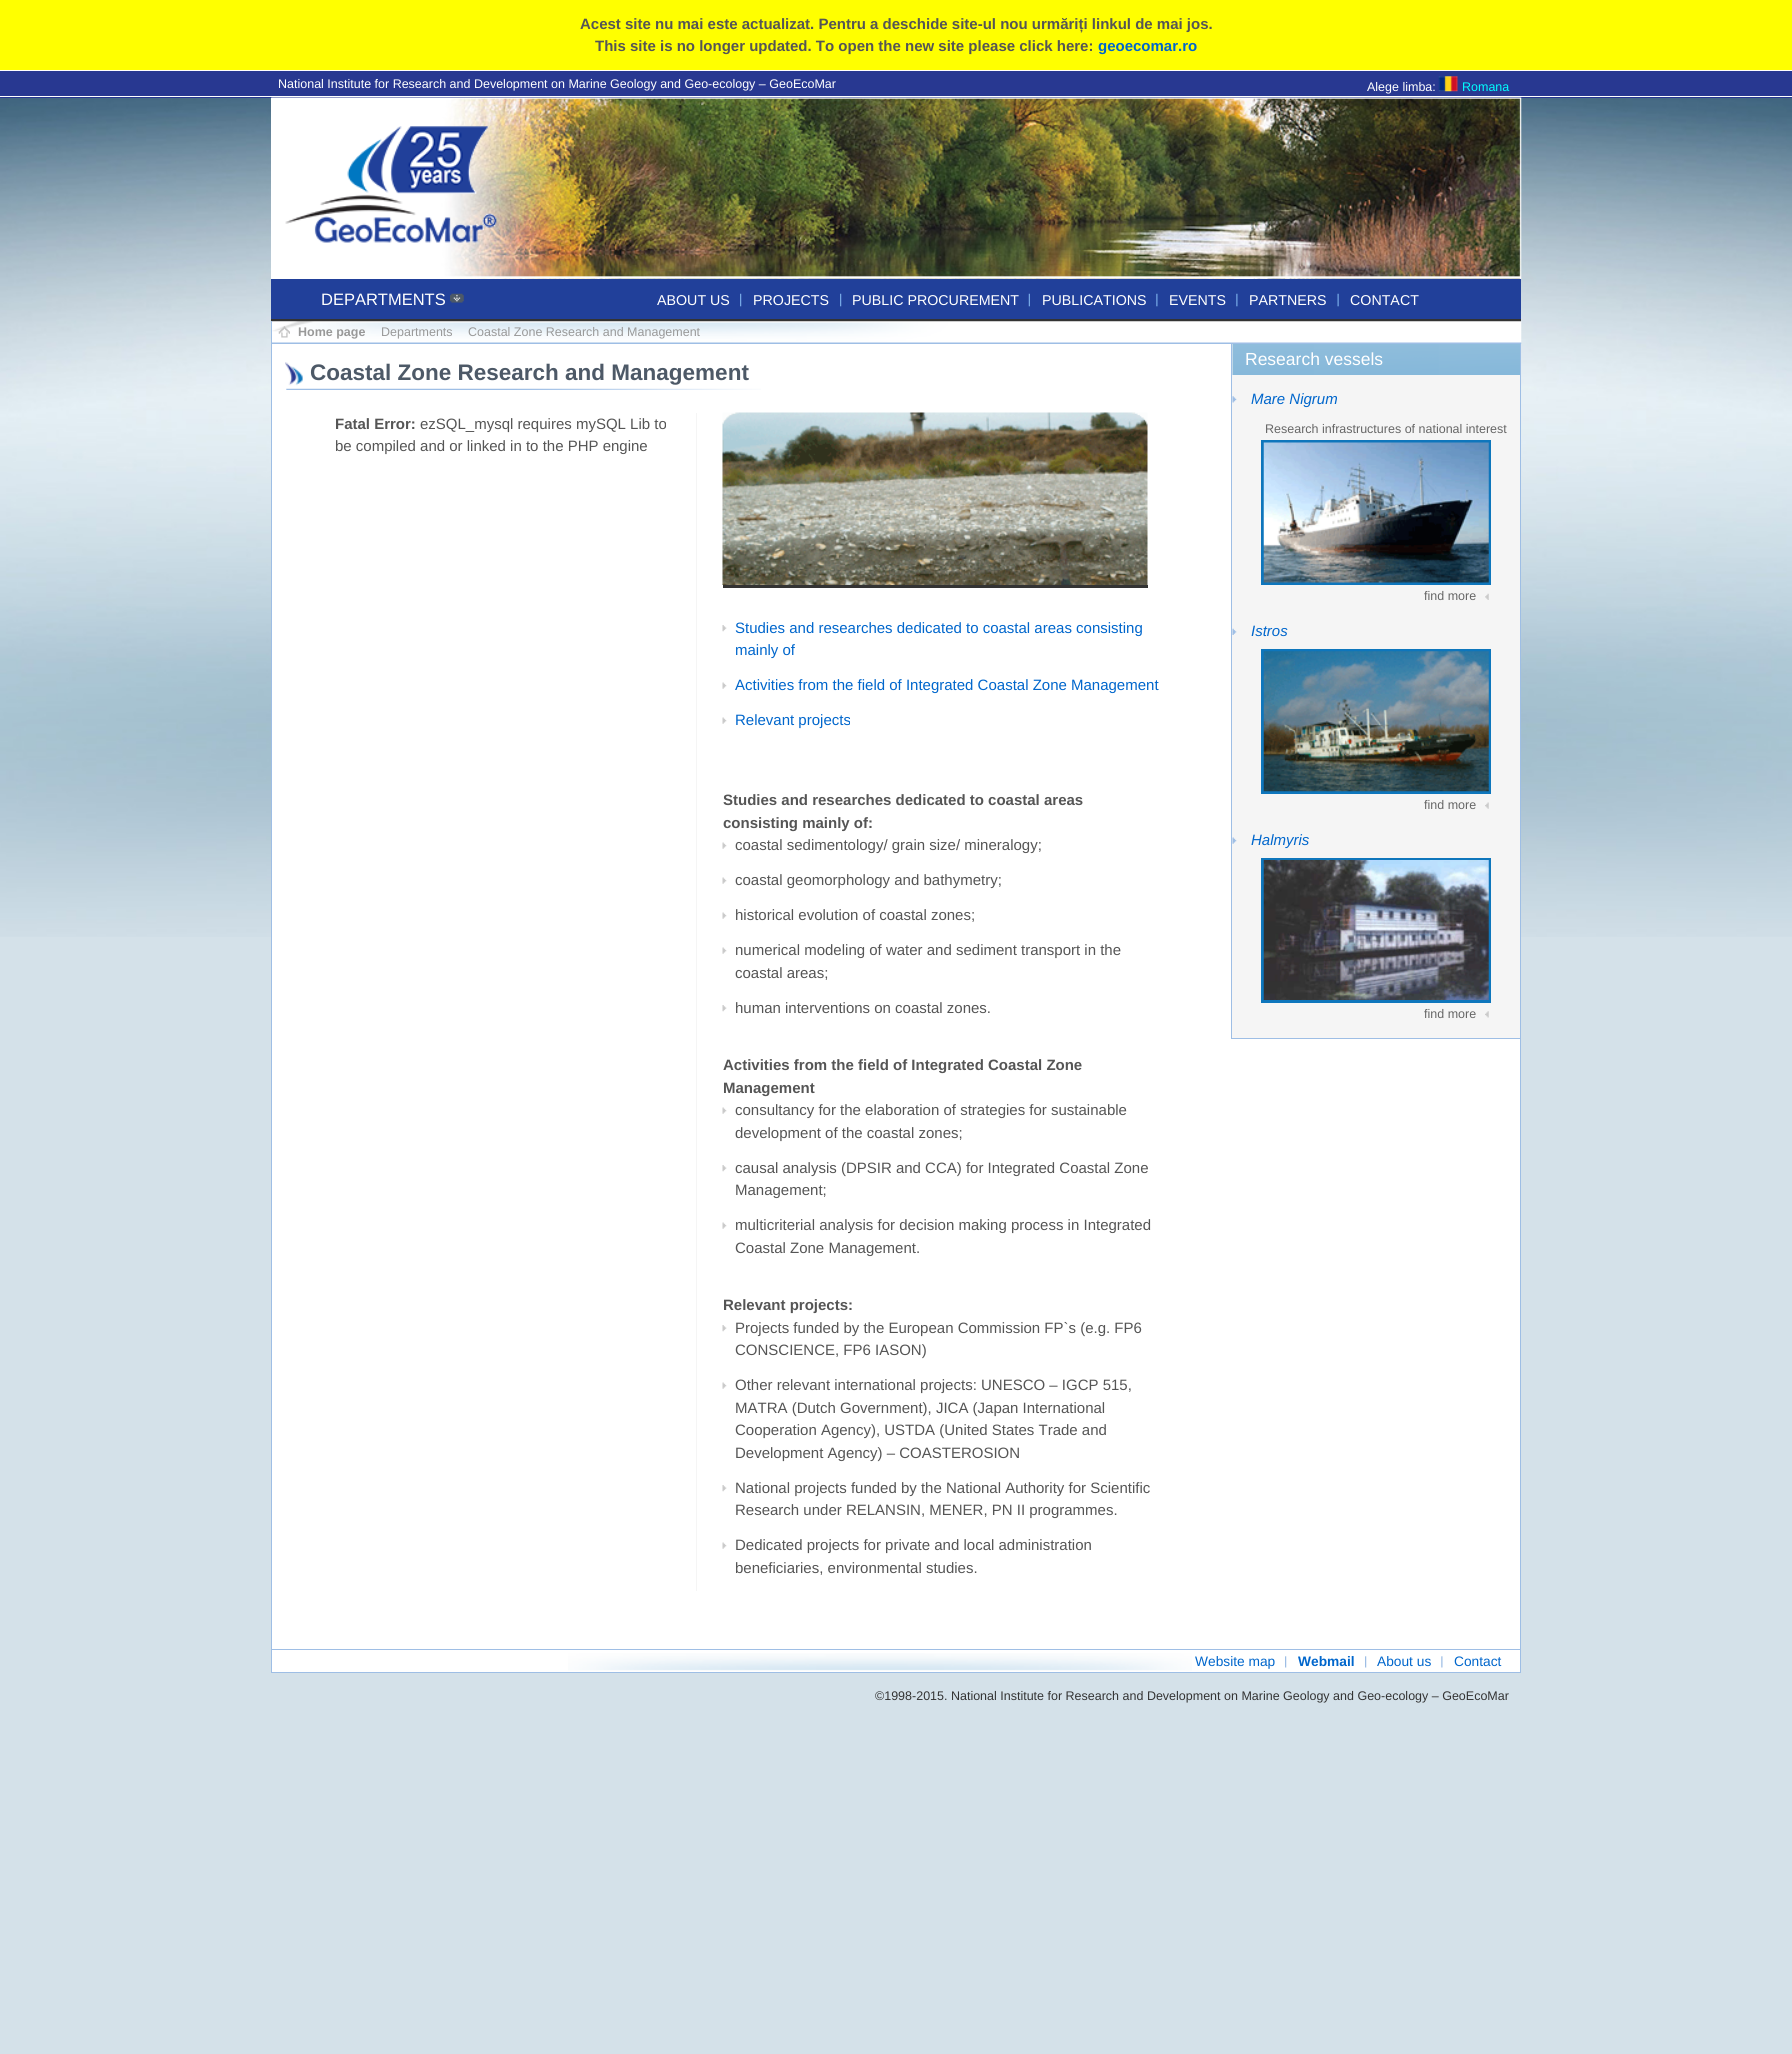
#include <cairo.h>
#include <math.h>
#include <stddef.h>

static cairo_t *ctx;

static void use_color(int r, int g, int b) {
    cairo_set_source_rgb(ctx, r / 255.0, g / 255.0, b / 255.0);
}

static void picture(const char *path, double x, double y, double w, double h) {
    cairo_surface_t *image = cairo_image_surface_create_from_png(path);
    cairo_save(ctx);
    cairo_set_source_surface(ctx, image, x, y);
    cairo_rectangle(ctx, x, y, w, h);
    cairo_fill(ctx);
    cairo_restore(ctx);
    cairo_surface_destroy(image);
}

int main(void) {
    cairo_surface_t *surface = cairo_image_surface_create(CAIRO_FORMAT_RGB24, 1792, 2054);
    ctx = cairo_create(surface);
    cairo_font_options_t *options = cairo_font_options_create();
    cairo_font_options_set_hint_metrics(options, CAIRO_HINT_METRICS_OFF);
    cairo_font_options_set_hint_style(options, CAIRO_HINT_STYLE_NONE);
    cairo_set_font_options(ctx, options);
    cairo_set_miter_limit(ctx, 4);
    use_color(212, 225, 233);
    cairo_paint(ctx);
    picture("img1.png", 0, 98, 1792, 839);
    use_color(255, 255, 0);
    cairo_rectangle(ctx, 0, 0, 1792, 70);
    cairo_fill(ctx);
    use_color(255, 255, 255);
    cairo_rectangle(ctx, 0, 70, 1792, 1);
    cairo_fill(ctx);
    cairo_select_font_face(ctx, "Liberation Sans", CAIRO_FONT_SLANT_NORMAL, CAIRO_FONT_WEIGHT_BOLD);
    cairo_set_font_size(ctx, 15);
    use_color(85, 85, 85);
    cairo_move_to(ctx, 580, 29);
    cairo_show_text(ctx, "Acest site nu mai este actualizat. Pentru a deschide site-ul nou urmăriți linkul de mai jos.");
    cairo_move_to(ctx, 595, 51);
    cairo_show_text(ctx, "This site is no longer updated. To open the new site please click here:");
    use_color(0, 102, 204);
    cairo_move_to(ctx, 1098, 51);
    cairo_show_text(ctx, "geoecomar.ro");
    use_color(40, 56, 145);
    cairo_rectangle(ctx, 0, 71, 1792, 27);
    cairo_fill(ctx);
    use_color(255, 255, 255);
    cairo_rectangle(ctx, 0, 96, 1792, 1);
    cairo_fill(ctx);
    cairo_select_font_face(ctx, "Liberation Sans", CAIRO_FONT_SLANT_NORMAL, CAIRO_FONT_WEIGHT_NORMAL);
    cairo_set_font_size(ctx, 12.5);
    cairo_move_to(ctx, 278, 88);
    cairo_show_text(ctx, "National Institute for Research and Development on Marine Geology and Geo-ecology – GeoEcoMar");
    cairo_move_to(ctx, 1367, 91);
    cairo_show_text(ctx, "Alege limba:");
    picture("img2.png", 1438, 76, 20, 16);
    use_color(0, 255, 255);
    cairo_move_to(ctx, 1462, 91);
    cairo_show_text(ctx, "Romana");
    use_color(255, 255, 255);
    cairo_rectangle(ctx, 271, 98, 1250, 1574);
    cairo_fill(ctx);
    picture("img3.png", 271, 97, 1251, 182);
    picture("img4.png", 285, 126, 212, 117);
    use_color(33, 64, 154);
    cairo_rectangle(ctx, 271, 279, 1250, 40);
    cairo_fill(ctx);
    use_color(51, 51, 51);
    cairo_rectangle(ctx, 271, 319, 1250, 3);
    cairo_fill(ctx);
    cairo_set_font_size(ctx, 16.5);
    use_color(255, 255, 255);
    cairo_move_to(ctx, 321, 305);
    cairo_show_text(ctx, "DEPARTMENTS");
    cairo_set_font_size(ctx, 14.25);
    cairo_move_to(ctx, 657, 305);
    cairo_show_text(ctx, "ABOUT US");
    picture("img5.png", 740, 293, 2, 14);
    cairo_move_to(ctx, 753, 305);
    cairo_show_text(ctx, "PROJECTS");
    picture("img5.png", 840, 293, 2, 14);
    cairo_move_to(ctx, 852, 305);
    cairo_show_text(ctx, "PUBLIC PROCUREMENT");
    picture("img6.png", 1028, 293, 2, 14);
    cairo_move_to(ctx, 1042, 305);
    cairo_show_text(ctx, "PUBLICATIONS");
    picture("img7.png", 1156, 293, 2, 14);
    cairo_move_to(ctx, 1169, 305);
    cairo_show_text(ctx, "EVENTS");
    picture("img7.png", 1236, 293, 2, 14);
    cairo_move_to(ctx, 1249, 305);
    cairo_show_text(ctx, "PARTNERS");
    picture("img8.png", 1337, 293, 2, 14);
    cairo_move_to(ctx, 1350, 305);
    cairo_show_text(ctx, "CONTACT");
    picture("img9.png", 450, 293, 14, 10);
    picture("img10.png", 272, 321, 1250, 23);
    use_color(158, 190, 229);
    cairo_rectangle(ctx, 271, 343, 1250, 1);
    cairo_fill(ctx);
    cairo_rectangle(ctx, 271, 321, 1, 1328);
    cairo_fill(ctx);
    picture("img11.png", 278, 326, 12, 12);
    cairo_select_font_face(ctx, "Liberation Sans", CAIRO_FONT_SLANT_NORMAL, CAIRO_FONT_WEIGHT_BOLD);
    cairo_set_font_size(ctx, 12.5);
    use_color(153, 153, 153);
    cairo_move_to(ctx, 298, 336);
    cairo_show_text(ctx, "Home page");
    cairo_select_font_face(ctx, "Liberation Sans", CAIRO_FONT_SLANT_NORMAL, CAIRO_FONT_WEIGHT_NORMAL);
    cairo_move_to(ctx, 381, 336);
    cairo_show_text(ctx, "Departments");
    cairo_move_to(ctx, 468, 336);
    cairo_show_text(ctx, "Coastal Zone Research and Management");
    use_color(158, 190, 229);
    cairo_rectangle(ctx, 1520, 344, 1, 1305);
    cairo_fill(ctx);
    picture("img12.png", 285, 362, 476, 28);
    cairo_select_font_face(ctx, "Liberation Sans", CAIRO_FONT_SLANT_NORMAL, CAIRO_FONT_WEIGHT_BOLD);
    cairo_set_font_size(ctx, 22.5);
    use_color(77, 89, 103);
    cairo_move_to(ctx, 310, 380);
    cairo_show_text(ctx, "Coastal Zone Research and Management");
    cairo_set_font_size(ctx, 15);
    use_color(85, 85, 85);
    cairo_move_to(ctx, 335, 429);
    cairo_show_text(ctx, "Fatal Error:");
    cairo_select_font_face(ctx, "Liberation Sans", CAIRO_FONT_SLANT_NORMAL, CAIRO_FONT_WEIGHT_NORMAL);
    cairo_move_to(ctx, 420, 429);
    cairo_show_text(ctx, "ezSQL_mysql requires mySQL Lib to");
    cairo_move_to(ctx, 335, 451);
    cairo_show_text(ctx, "be compiled and or linked in to the PHP engine");
    use_color(245, 245, 245);
    cairo_rectangle(ctx, 696, 413, 1, 1178);
    cairo_fill(ctx);
    picture("img13.png", 722, 412, 426, 173);
    use_color(51, 51, 51);
    cairo_rectangle(ctx, 723, 585, 425, 3);
    cairo_fill(ctx);
    picture("img14.png", 722, 625, 5, 7);
    use_color(0, 102, 204);
    cairo_move_to(ctx, 735, 633);
    cairo_show_text(ctx, "Studies and researches dedicated to coastal areas consisting");
    cairo_move_to(ctx, 735, 655);
    cairo_show_text(ctx, "mainly of");
    picture("img15.png", 722, 682, 5, 7);
    cairo_move_to(ctx, 735, 690);
    cairo_show_text(ctx, "Activities from the field of Integrated Coastal Zone Management");
    picture("img15.png", 722, 717, 5, 7);
    cairo_move_to(ctx, 735, 725);
    cairo_show_text(ctx, "Relevant projects");
    cairo_select_font_face(ctx, "Liberation Sans", CAIRO_FONT_SLANT_NORMAL, CAIRO_FONT_WEIGHT_BOLD);
    use_color(85, 85, 85);
    cairo_move_to(ctx, 723, 805);
    cairo_show_text(ctx, "Studies and researches dedicated to coastal areas");
    cairo_move_to(ctx, 723, 828);
    cairo_show_text(ctx, "consisting mainly of:");
    picture("img15.png", 722, 842, 5, 7);
    cairo_select_font_face(ctx, "Liberation Sans", CAIRO_FONT_SLANT_NORMAL, CAIRO_FONT_WEIGHT_NORMAL);
    cairo_move_to(ctx, 735, 850);
    cairo_show_text(ctx, "coastal sedimentology/ grain size/ mineralogy;");
    picture("img15.png", 722, 877, 5, 7);
    cairo_move_to(ctx, 735, 885);
    cairo_show_text(ctx, "coastal geomorphology and bathymetry;");
    picture("img15.png", 722, 912, 5, 7);
    cairo_move_to(ctx, 735, 920);
    cairo_show_text(ctx, "historical evolution of coastal zones;");
    picture("img15.png", 722, 947, 5, 7);
    cairo_move_to(ctx, 735, 955);
    cairo_show_text(ctx, "numerical modeling of water and sediment transport in the");
    cairo_move_to(ctx, 735, 978);
    cairo_show_text(ctx, "coastal areas;");
    picture("img14.png", 722, 1005, 5, 7);
    cairo_move_to(ctx, 735, 1013);
    cairo_show_text(ctx, "human interventions on coastal zones.");
    cairo_select_font_face(ctx, "Liberation Sans", CAIRO_FONT_SLANT_NORMAL, CAIRO_FONT_WEIGHT_BOLD);
    cairo_move_to(ctx, 723, 1070);
    cairo_show_text(ctx, "Activities from the field of Integrated Coastal Zone");
    cairo_move_to(ctx, 723, 1093);
    cairo_show_text(ctx, "Management");
    picture("img15.png", 722, 1107, 5, 7);
    cairo_select_font_face(ctx, "Liberation Sans", CAIRO_FONT_SLANT_NORMAL, CAIRO_FONT_WEIGHT_NORMAL);
    cairo_move_to(ctx, 735, 1115);
    cairo_show_text(ctx, "consultancy for the elaboration of strategies for sustainable");
    cairo_move_to(ctx, 735, 1138);
    cairo_show_text(ctx, "development of the coastal zones;");
    picture("img14.png", 722, 1165, 5, 7);
    cairo_move_to(ctx, 735, 1173);
    cairo_show_text(ctx, "causal analysis (DPSIR and CCA) for Integrated Coastal Zone");
    cairo_move_to(ctx, 735, 1195);
    cairo_show_text(ctx, "Management;");
    picture("img15.png", 722, 1222, 5, 7);
    cairo_move_to(ctx, 735, 1230);
    cairo_show_text(ctx, "multicriterial analysis for decision making process in Integrated");
    cairo_move_to(ctx, 735, 1253);
    cairo_show_text(ctx, "Coastal Zone Management.");
    cairo_select_font_face(ctx, "Liberation Sans", CAIRO_FONT_SLANT_NORMAL, CAIRO_FONT_WEIGHT_BOLD);
    cairo_move_to(ctx, 723, 1310);
    cairo_show_text(ctx, "Relevant projects:");
    picture("img14.png", 722, 1325, 5, 7);
    cairo_select_font_face(ctx, "Liberation Sans", CAIRO_FONT_SLANT_NORMAL, CAIRO_FONT_WEIGHT_NORMAL);
    cairo_move_to(ctx, 735, 1333);
    cairo_show_text(ctx, "Projects funded by the European Commission FP`s (e.g. FP6");
    cairo_move_to(ctx, 735, 1355);
    cairo_show_text(ctx, "CONSCIENCE, FP6 IASON)");
    picture("img15.png", 722, 1382, 5, 7);
    cairo_move_to(ctx, 735, 1390);
    cairo_show_text(ctx, "Other relevant international projects: UNESCO – IGCP 515,");
    cairo_move_to(ctx, 735, 1413);
    cairo_show_text(ctx, "MATRA (Dutch Government), JICA (Japan International");
    cairo_move_to(ctx, 735, 1435);
    cairo_show_text(ctx, "Cooperation Agency), USTDA (United States Trade and");
    cairo_move_to(ctx, 735, 1458);
    cairo_show_text(ctx, "Development Agency) – COASTEROSION");
    picture("img14.png", 722, 1485, 5, 7);
    cairo_move_to(ctx, 735, 1493);
    cairo_show_text(ctx, "National projects funded by the National Authority for Scientific");
    cairo_move_to(ctx, 735, 1515);
    cairo_show_text(ctx, "Research under RELANSIN, MENER, PN II programmes.");
    picture("img15.png", 722, 1542, 5, 7);
    cairo_move_to(ctx, 735, 1550);
    cairo_show_text(ctx, "Dedicated projects for private and local administration");
    cairo_move_to(ctx, 735, 1573);
    cairo_show_text(ctx, "beneficiaries, environmental studies.");
    use_color(245, 245, 245);
    cairo_rectangle(ctx, 1232, 344, 288, 694);
    cairo_fill(ctx);
    use_color(158, 190, 229);
    cairo_rectangle(ctx, 1231, 1038, 289, 1);
    cairo_fill(ctx);
    cairo_rectangle(ctx, 1231, 344, 1, 695);
    cairo_fill(ctx);
    picture("img16.png", 1232, 344, 288, 31);
    cairo_set_font_size(ctx, 17.5);
    use_color(255, 255, 255);
    cairo_move_to(ctx, 1245, 365);
    cairo_show_text(ctx, "Research vessels");
    picture("img17.png", 1232, 396, 5, 7);
    cairo_select_font_face(ctx, "Liberation Sans", CAIRO_FONT_SLANT_ITALIC, CAIRO_FONT_WEIGHT_NORMAL);
    cairo_set_font_size(ctx, 15);
    use_color(0, 102, 204);
    cairo_move_to(ctx, 1251, 404);
    cairo_show_text(ctx, "Mare Nigrum");
    cairo_select_font_face(ctx, "Liberation Sans", CAIRO_FONT_SLANT_NORMAL, CAIRO_FONT_WEIGHT_NORMAL);
    cairo_set_font_size(ctx, 12.5);
    use_color(102, 102, 102);
    cairo_move_to(ctx, 1265, 433);
    cairo_show_text(ctx, "Research infrastructures of national interest");
    cairo_rectangle(ctx, 1262.5, 441.5, 227, 142);
    use_color(14, 118, 188);
    cairo_set_line_width(ctx, 3);
    cairo_stroke(ctx);
    picture("img18.png", 1263, 442, 226, 141);
    picture("img19.png", 1485, 593, 4, 7);
    use_color(102, 102, 102);
    cairo_move_to(ctx, 1424, 600);
    cairo_show_text(ctx, "find more");
    picture("img20.png", 1232, 628, 5, 7);
    cairo_select_font_face(ctx, "Liberation Sans", CAIRO_FONT_SLANT_ITALIC, CAIRO_FONT_WEIGHT_NORMAL);
    cairo_set_font_size(ctx, 15);
    use_color(0, 102, 204);
    cairo_move_to(ctx, 1251, 636);
    cairo_show_text(ctx, "Istros");
    cairo_rectangle(ctx, 1262.5, 650.5, 227, 142);
    use_color(14, 118, 188);
    cairo_stroke(ctx);
    picture("img21.png", 1263, 651, 226, 141);
    picture("img22.png", 1485, 802, 4, 7);
    cairo_select_font_face(ctx, "Liberation Sans", CAIRO_FONT_SLANT_NORMAL, CAIRO_FONT_WEIGHT_NORMAL);
    cairo_set_font_size(ctx, 12.5);
    use_color(102, 102, 102);
    cairo_move_to(ctx, 1424, 809);
    cairo_show_text(ctx, "find more");
    picture("img23.png", 1232, 837, 5, 7);
    cairo_select_font_face(ctx, "Liberation Sans", CAIRO_FONT_SLANT_ITALIC, CAIRO_FONT_WEIGHT_NORMAL);
    cairo_set_font_size(ctx, 15);
    use_color(0, 102, 204);
    cairo_move_to(ctx, 1251, 845);
    cairo_show_text(ctx, "Halmyris");
    cairo_rectangle(ctx, 1262.5, 859.5, 227, 142);
    use_color(14, 118, 188);
    cairo_stroke(ctx);
    picture("img24.png", 1263, 860, 226, 140);
    picture("img25.png", 1485, 1011, 4, 7);
    cairo_select_font_face(ctx, "Liberation Sans", CAIRO_FONT_SLANT_NORMAL, CAIRO_FONT_WEIGHT_NORMAL);
    cairo_set_font_size(ctx, 12.5);
    use_color(102, 102, 102);
    cairo_move_to(ctx, 1424, 1018);
    cairo_show_text(ctx, "find more");
    picture("img26.png", 568, 1653, 624, 18);
    cairo_rectangle(ctx, 271.5, 1649.5, 1249, 23);
    use_color(158, 190, 229);
    cairo_set_line_width(ctx, 1);
    cairo_stroke(ctx);
    cairo_set_font_size(ctx, 13.75);
    use_color(0, 102, 204);
    cairo_move_to(ctx, 1195, 1666);
    cairo_show_text(ctx, "Website map");
    picture("img27.png", 1285, 1656, 2, 12);
    cairo_select_font_face(ctx, "Liberation Sans", CAIRO_FONT_SLANT_NORMAL, CAIRO_FONT_WEIGHT_BOLD);
    cairo_move_to(ctx, 1298, 1666);
    cairo_show_text(ctx, "Webmail");
    picture("img27.png", 1365, 1656, 2, 12);
    cairo_select_font_face(ctx, "Liberation Sans", CAIRO_FONT_SLANT_NORMAL, CAIRO_FONT_WEIGHT_NORMAL);
    cairo_move_to(ctx, 1377, 1666);
    cairo_show_text(ctx, "About us");
    picture("img28.png", 1441, 1656, 2, 12);
    cairo_move_to(ctx, 1454, 1666);
    cairo_show_text(ctx, "Contact");
    cairo_set_font_size(ctx, 12.5);
    use_color(51, 51, 51);
    cairo_move_to(ctx, 875, 1700);
    cairo_show_text(ctx, "©1998-2015. National Institute for Research and Development on Marine Geology and Geo-ecology – GeoEcoMar");
    cairo_surface_write_to_png(surface, "result.png");
    cairo_font_options_destroy(options);
    cairo_destroy(ctx);
    cairo_surface_destroy(surface);
    return 0;
}
